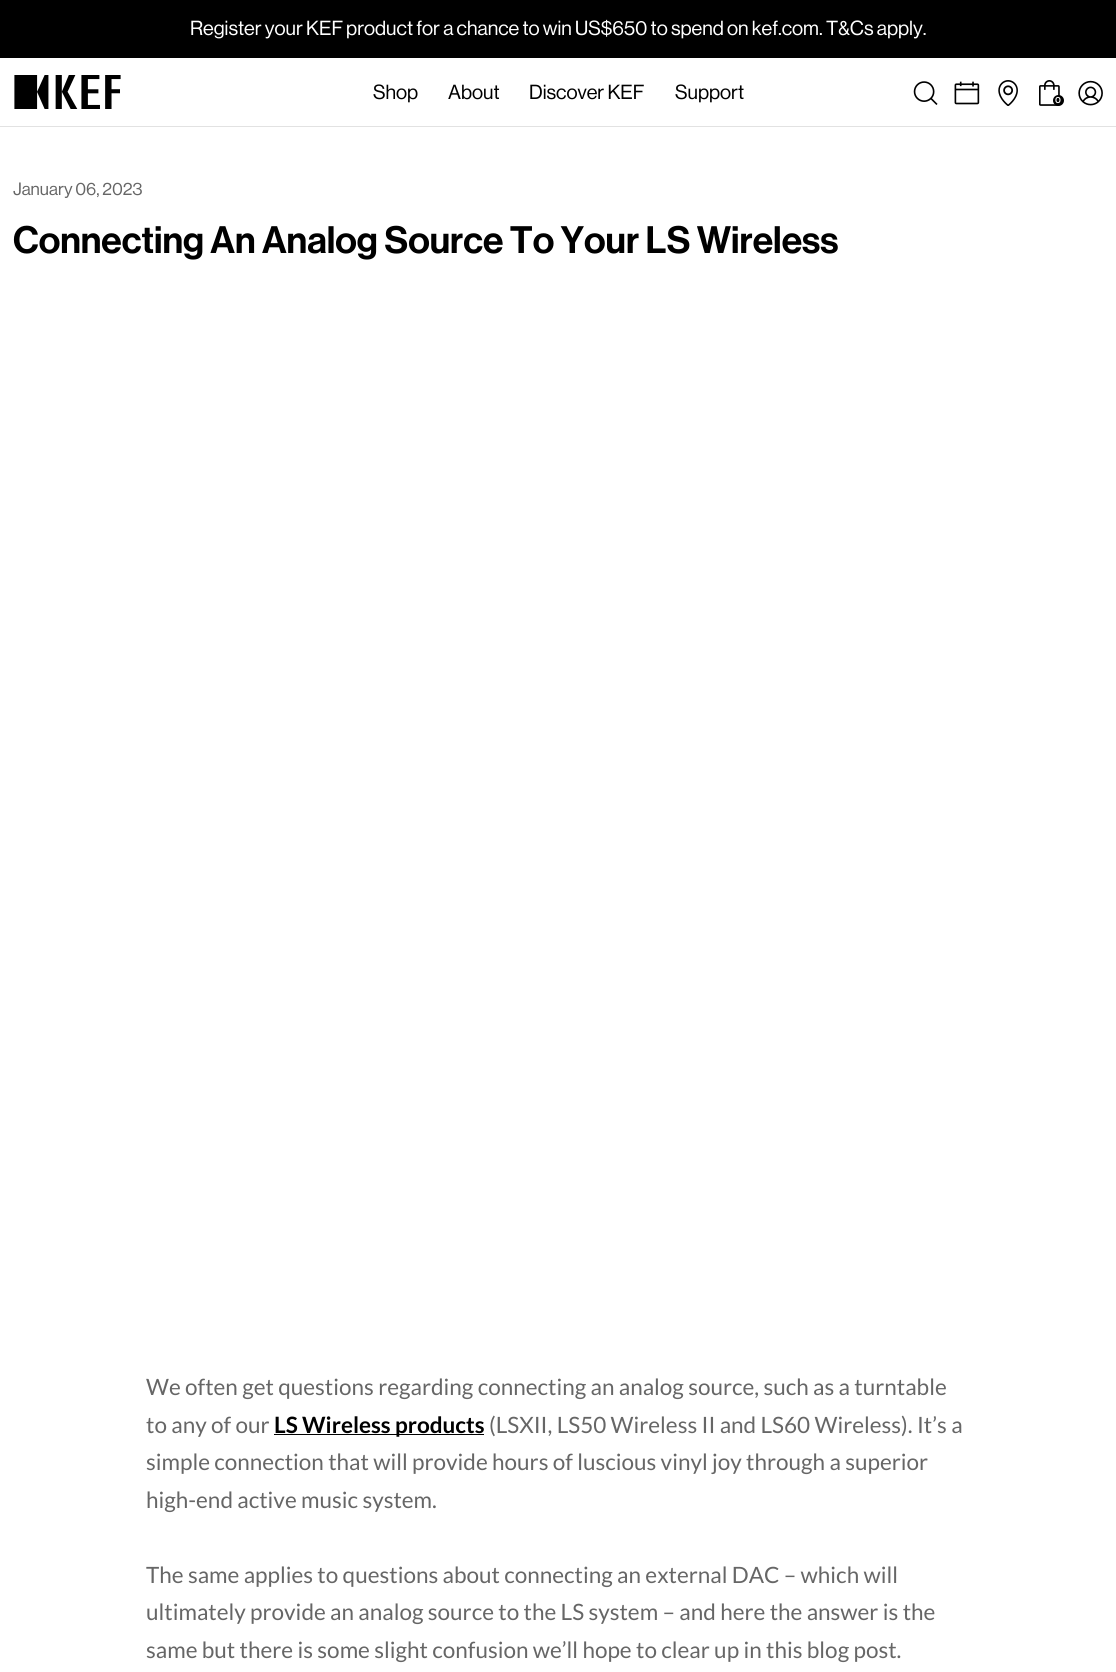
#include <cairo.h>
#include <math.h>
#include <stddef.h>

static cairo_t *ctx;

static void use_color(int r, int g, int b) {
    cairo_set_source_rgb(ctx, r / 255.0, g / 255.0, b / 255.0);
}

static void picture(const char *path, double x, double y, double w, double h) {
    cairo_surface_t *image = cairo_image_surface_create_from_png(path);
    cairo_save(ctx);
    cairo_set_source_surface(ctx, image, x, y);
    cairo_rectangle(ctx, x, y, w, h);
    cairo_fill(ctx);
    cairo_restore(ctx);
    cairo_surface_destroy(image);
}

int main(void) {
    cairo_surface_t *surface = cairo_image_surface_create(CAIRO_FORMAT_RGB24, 1116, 1672);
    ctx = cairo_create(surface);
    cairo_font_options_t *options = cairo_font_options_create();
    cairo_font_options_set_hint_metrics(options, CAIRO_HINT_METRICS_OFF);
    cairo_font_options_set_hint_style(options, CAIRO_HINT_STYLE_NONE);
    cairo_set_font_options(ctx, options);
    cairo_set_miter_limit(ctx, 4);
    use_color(255, 255, 255);
    cairo_paint(ctx);
    use_color(0, 0, 0);
    cairo_rectangle(ctx, 0, 0, 1116, 58);
    cairo_fill(ctx);
    cairo_select_font_face(ctx, "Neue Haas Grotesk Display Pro", CAIRO_FONT_SLANT_NORMAL, CAIRO_FONT_WEIGHT_NORMAL);
    cairo_set_font_size(ctx, 20);
    use_color(255, 255, 255);
    cairo_move_to(ctx, 190, 35);
    cairo_show_text(ctx, "Register your KEF product for a chance to win US$650 to spend on kef.com. T&Cs apply.");
    use_color(226, 226, 226);
    cairo_rectangle(ctx, 0, 126, 1116, 1);
    cairo_fill(ctx);
    picture("img1.png", 14, 75, 107, 34);
    use_color(0, 0, 0);
    cairo_move_to(ctx, 373, 99);
    cairo_show_text(ctx, "Shop");
    cairo_move_to(ctx, 448, 99);
    cairo_show_text(ctx, "About");
    cairo_move_to(ctx, 529, 99);
    cairo_show_text(ctx, "Discover KEF");
    cairo_move_to(ctx, 675, 99);
    cairo_show_text(ctx, "Support");
    picture("img2.png", 913, 81, 25, 24);
    picture("img3.png", 954, 81, 26, 24);
    picture("img4.png", 998, 80, 20, 26);
    picture("img5.png", 1039, 80, 21, 26);
    cairo_arc(ctx, 1058.5, 100.5, 5.5, 0, 2 * M_PI);
    cairo_fill(ctx);
    cairo_select_font_face(ctx, "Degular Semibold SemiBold", CAIRO_FONT_SLANT_NORMAL, CAIRO_FONT_WEIGHT_NORMAL);
    cairo_set_font_size(ctx, 10);
    use_color(255, 255, 255);
    cairo_move_to(ctx, 1055, 103);
    cairo_show_text(ctx, "0");
    picture("img6.png", 1078, 80, 25, 26);
    cairo_select_font_face(ctx, "Neue Haas Grotesk Display Pro", CAIRO_FONT_SLANT_NORMAL, CAIRO_FONT_WEIGHT_NORMAL);
    cairo_set_font_size(ctx, 17.5);
    use_color(102, 102, 102);
    cairo_move_to(ctx, 13, 195);
    cairo_show_text(ctx, "January 06, 2023");
    cairo_select_font_face(ctx, "Neue Haas Grotesk Display Pro SemiBold", CAIRO_FONT_SLANT_NORMAL, CAIRO_FONT_WEIGHT_NORMAL);
    cairo_set_font_size(ctx, 37.5);
    use_color(0, 0, 0);
    cairo_move_to(ctx, 13, 253);
    cairo_show_text(ctx, "Connecting An Analog Source To Your LS Wireless");
    cairo_select_font_face(ctx, "Lato", CAIRO_FONT_SLANT_NORMAL, CAIRO_FONT_WEIGHT_NORMAL);
    cairo_set_font_size(ctx, 22.5);
    use_color(102, 102, 102);
    cairo_move_to(ctx, 146, 1395);
    cairo_show_text(ctx, "We often get questions regarding connecting an analog source, such as a turntable");
    cairo_move_to(ctx, 146, 1433);
    cairo_show_text(ctx, "to any of our");
    use_color(0, 0, 0);
    cairo_rectangle(ctx, 274, 1434, 210, 1);
    cairo_fill(ctx);
    cairo_select_font_face(ctx, "Lato", CAIRO_FONT_SLANT_NORMAL, CAIRO_FONT_WEIGHT_BOLD);
    cairo_move_to(ctx, 274, 1433);
    cairo_show_text(ctx, "LS Wireless products");
    cairo_select_font_face(ctx, "Lato", CAIRO_FONT_SLANT_NORMAL, CAIRO_FONT_WEIGHT_NORMAL);
    use_color(102, 102, 102);
    cairo_move_to(ctx, 489, 1433);
    cairo_show_text(ctx, "(LSXII, LS50 Wireless II and LS60 Wireless). It’s a");
    cairo_move_to(ctx, 146, 1470);
    cairo_show_text(ctx, "simple connection that will provide hours of luscious vinyl joy through a superior");
    cairo_move_to(ctx, 146, 1508);
    cairo_show_text(ctx, "high-end active music system.");
    cairo_move_to(ctx, 146, 1583);
    cairo_show_text(ctx, "The same applies to questions about connecting an external DAC – which will");
    cairo_move_to(ctx, 146, 1620);
    cairo_show_text(ctx, "ultimately provide an analog source to the LS system – and here the answer is the");
    cairo_move_to(ctx, 146, 1658);
    cairo_show_text(ctx, "same but there is some slight confusion we’ll hope to clear up in this blog post.");
    cairo_surface_write_to_png(surface, "result.png");
    cairo_font_options_destroy(options);
    cairo_destroy(ctx);
    cairo_surface_destroy(surface);
    return 0;
}
